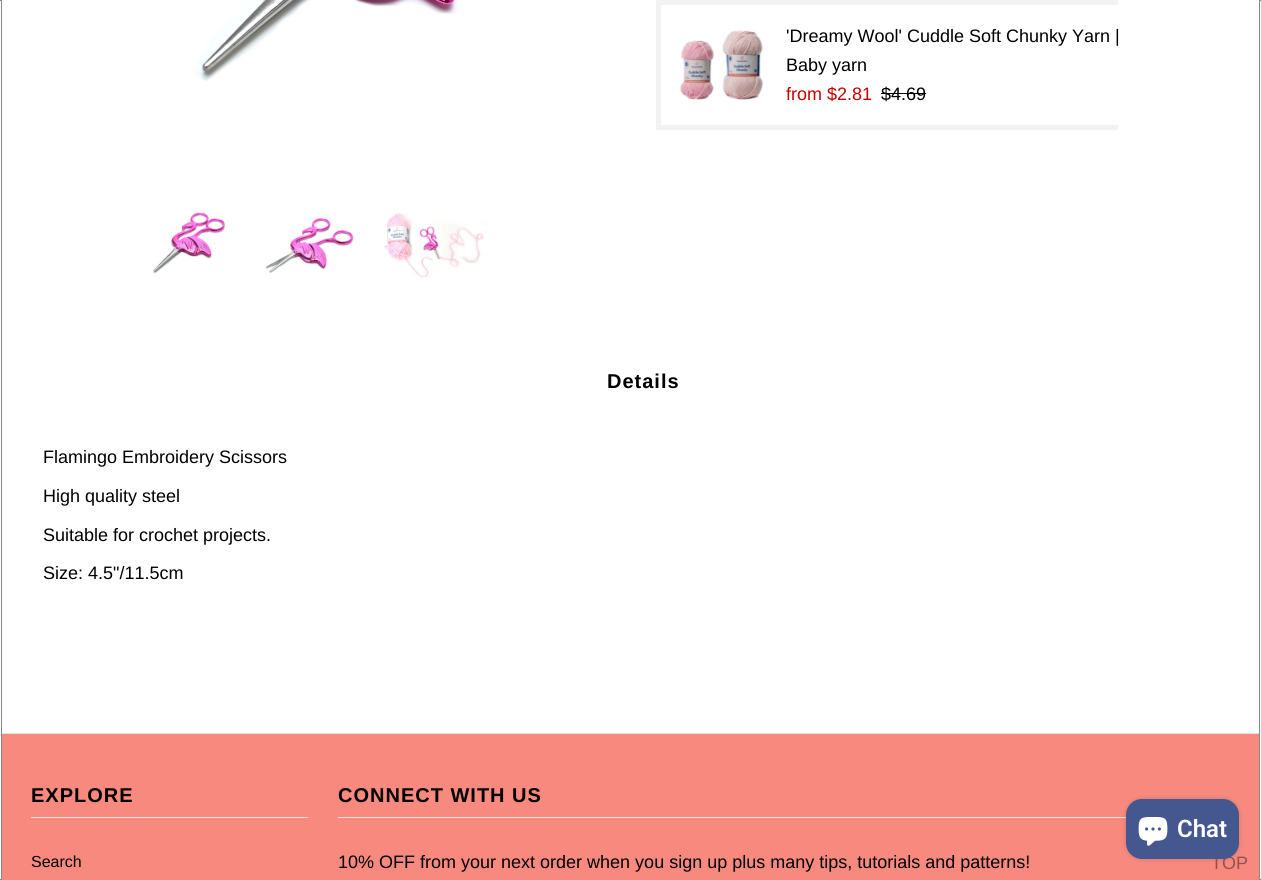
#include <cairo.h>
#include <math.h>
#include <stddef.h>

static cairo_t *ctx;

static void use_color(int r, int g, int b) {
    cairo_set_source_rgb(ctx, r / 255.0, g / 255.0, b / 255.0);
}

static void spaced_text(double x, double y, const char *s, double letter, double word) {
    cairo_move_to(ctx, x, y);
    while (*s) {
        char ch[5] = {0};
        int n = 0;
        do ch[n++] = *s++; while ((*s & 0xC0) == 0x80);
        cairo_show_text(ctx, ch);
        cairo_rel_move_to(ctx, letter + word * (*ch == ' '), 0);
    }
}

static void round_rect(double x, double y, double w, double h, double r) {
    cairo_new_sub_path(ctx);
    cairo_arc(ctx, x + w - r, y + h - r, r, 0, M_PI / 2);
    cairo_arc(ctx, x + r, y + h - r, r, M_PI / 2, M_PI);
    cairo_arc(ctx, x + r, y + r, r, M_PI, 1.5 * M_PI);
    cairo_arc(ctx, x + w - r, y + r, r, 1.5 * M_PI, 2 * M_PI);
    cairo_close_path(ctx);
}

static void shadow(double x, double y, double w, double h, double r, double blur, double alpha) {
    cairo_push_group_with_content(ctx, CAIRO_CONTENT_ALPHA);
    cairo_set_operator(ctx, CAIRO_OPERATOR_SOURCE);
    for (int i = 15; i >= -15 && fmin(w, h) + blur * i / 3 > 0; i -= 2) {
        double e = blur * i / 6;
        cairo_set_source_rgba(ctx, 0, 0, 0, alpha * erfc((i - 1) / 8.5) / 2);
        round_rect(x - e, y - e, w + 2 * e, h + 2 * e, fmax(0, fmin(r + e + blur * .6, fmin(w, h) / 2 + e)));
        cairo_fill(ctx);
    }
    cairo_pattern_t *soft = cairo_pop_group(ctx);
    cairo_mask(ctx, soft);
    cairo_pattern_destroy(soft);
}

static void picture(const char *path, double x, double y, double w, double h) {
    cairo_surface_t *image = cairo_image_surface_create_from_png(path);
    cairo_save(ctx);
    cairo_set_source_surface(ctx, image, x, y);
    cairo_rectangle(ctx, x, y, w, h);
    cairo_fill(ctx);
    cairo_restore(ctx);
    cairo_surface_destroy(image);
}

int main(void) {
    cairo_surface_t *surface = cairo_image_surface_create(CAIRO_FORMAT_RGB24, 1261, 880);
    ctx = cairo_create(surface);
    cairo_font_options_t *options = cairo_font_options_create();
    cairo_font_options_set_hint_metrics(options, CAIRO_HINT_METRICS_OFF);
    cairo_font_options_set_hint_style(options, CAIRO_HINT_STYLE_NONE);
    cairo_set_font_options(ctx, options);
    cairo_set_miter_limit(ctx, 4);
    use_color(255, 255, 255);
    cairo_paint(ctx);
    use_color(229, 229, 229);
    cairo_rectangle(ctx, 0, 733, 1261, 1);
    cairo_fill(ctx);
    use_color(255, 255, 255);
    cairo_rectangle(ctx, 0, 733, 1, 1);
    cairo_fill(ctx);
    cairo_rectangle(ctx, -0.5, 0.5, 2, 879);
    use_color(136, 136, 136);
    cairo_set_line_width(ctx, 1);
    cairo_stroke(ctx);
    picture("img1.png", 194, 0, 264, 82);
    picture("img2.png", 152, 212, 74, 62);
    picture("img3.png", 265, 217, 89, 56);
    picture("img4.png", 384, 213, 104, 65);
    use_color(242, 242, 242);
    cairo_rectangle(ctx, 656, 0, 462, 130);
    cairo_fill(ctx);
    use_color(255, 255, 255);
    cairo_rectangle(ctx, 661, 5, 457, 120);
    cairo_fill(ctx);
    picture("img5.png", 680, 30, 84, 71);
    cairo_select_font_face(ctx, "Liberation Sans", CAIRO_FONT_SLANT_NORMAL, CAIRO_FONT_WEIGHT_NORMAL);
    cairo_set_font_size(ctx, 18);
    use_color(0, 0, 0);
    cairo_move_to(ctx, 786, 42);
    cairo_show_text(ctx, "'Dreamy Wool' Cuddle Soft Chunky Yarn |");
    cairo_move_to(ctx, 786, 71);
    cairo_show_text(ctx, "Baby yarn");
    use_color(197, 0, 0);
    cairo_move_to(ctx, 786, 100);
    cairo_show_text(ctx, "from $2.81");
    use_color(0, 0, 0);
    cairo_move_to(ctx, 881, 100);
    cairo_show_text(ctx, "$4.69");
    cairo_rectangle(ctx, 881, 93, 45, 1);
    cairo_fill(ctx);
    cairo_select_font_face(ctx, "Liberation Sans", CAIRO_FONT_SLANT_NORMAL, CAIRO_FONT_WEIGHT_BOLD);
    cairo_set_font_size(ctx, 20);
    spaced_text(607, 388, "Details", 1, 0);
    cairo_select_font_face(ctx, "Liberation Sans", CAIRO_FONT_SLANT_NORMAL, CAIRO_FONT_WEIGHT_NORMAL);
    cairo_set_font_size(ctx, 18);
    cairo_move_to(ctx, 43, 463);
    cairo_show_text(ctx, "Flamingo Embroidery Scissors");
    cairo_move_to(ctx, 43, 502);
    cairo_show_text(ctx, "High quality steel");
    cairo_move_to(ctx, 43, 541);
    cairo_show_text(ctx, "Suitable for crochet projects.");
    cairo_move_to(ctx, 43, 579);
    cairo_show_text(ctx, "Size: 4.5\"/11.5cm");
    use_color(247, 137, 126);
    cairo_rectangle(ctx, 2, 734, 1257, 146);
    cairo_fill(ctx);
    use_color(229, 229, 229);
    cairo_rectangle(ctx, 31, 817, 277, 1);
    cairo_fill(ctx);
    cairo_select_font_face(ctx, "Liberation Sans", CAIRO_FONT_SLANT_NORMAL, CAIRO_FONT_WEIGHT_BOLD);
    cairo_set_font_size(ctx, 20);
    use_color(0, 0, 0);
    spaced_text(31, 802, "EXPLORE", 1, 0);
    cairo_select_font_face(ctx, "Liberation Sans", CAIRO_FONT_SLANT_NORMAL, CAIRO_FONT_WEIGHT_NORMAL);
    cairo_set_font_size(ctx, 16);
    cairo_move_to(ctx, 31, 867);
    cairo_show_text(ctx, "Search");
    use_color(229, 229, 229);
    cairo_rectangle(ctx, 338, 817, 790, 1);
    cairo_fill(ctx);
    cairo_select_font_face(ctx, "Liberation Sans", CAIRO_FONT_SLANT_NORMAL, CAIRO_FONT_WEIGHT_BOLD);
    cairo_set_font_size(ctx, 20);
    use_color(0, 0, 0);
    spaced_text(338, 802, "CONNECT WITH US", 1, 0);
    cairo_select_font_face(ctx, "Liberation Sans", CAIRO_FONT_SLANT_NORMAL, CAIRO_FONT_WEIGHT_NORMAL);
    cairo_set_font_size(ctx, 18);
    cairo_move_to(ctx, 338, 868);
    cairo_show_text(ctx, "10% OFF from your next order when you sign up plus many tips, tutorials and patterns!");
    use_color(0, 0, 0);
    shadow(1126, 799, 113, 60, 16, 2.5, 0.15);
    use_color(148, 82, 76);
    cairo_move_to(ctx, 1211, 869);
    cairo_show_text(ctx, "TOP");
    use_color(68, 87, 143);
    round_rect(1126, 799, 113, 60, 16);
    cairo_fill(ctx);
    picture("img6.png", 1138, 817, 30, 29);
    cairo_select_font_face(ctx, "Roboto SemiBold", CAIRO_FONT_SLANT_NORMAL, CAIRO_FONT_WEIGHT_NORMAL);
    cairo_set_font_size(ctx, 24);
    use_color(255, 255, 255);
    cairo_move_to(ctx, 1177, 837);
    cairo_show_text(ctx, "Chat");
    cairo_rectangle(ctx, 1260, 733, 1, 1);
    cairo_fill(ctx);
    cairo_rectangle(ctx, 1259.5, 0.5, 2, 879);
    use_color(136, 136, 136);
    cairo_stroke(ctx);
    cairo_surface_write_to_png(surface, "result.png");
    cairo_font_options_destroy(options);
    cairo_destroy(ctx);
    cairo_surface_destroy(surface);
    return 0;
}
